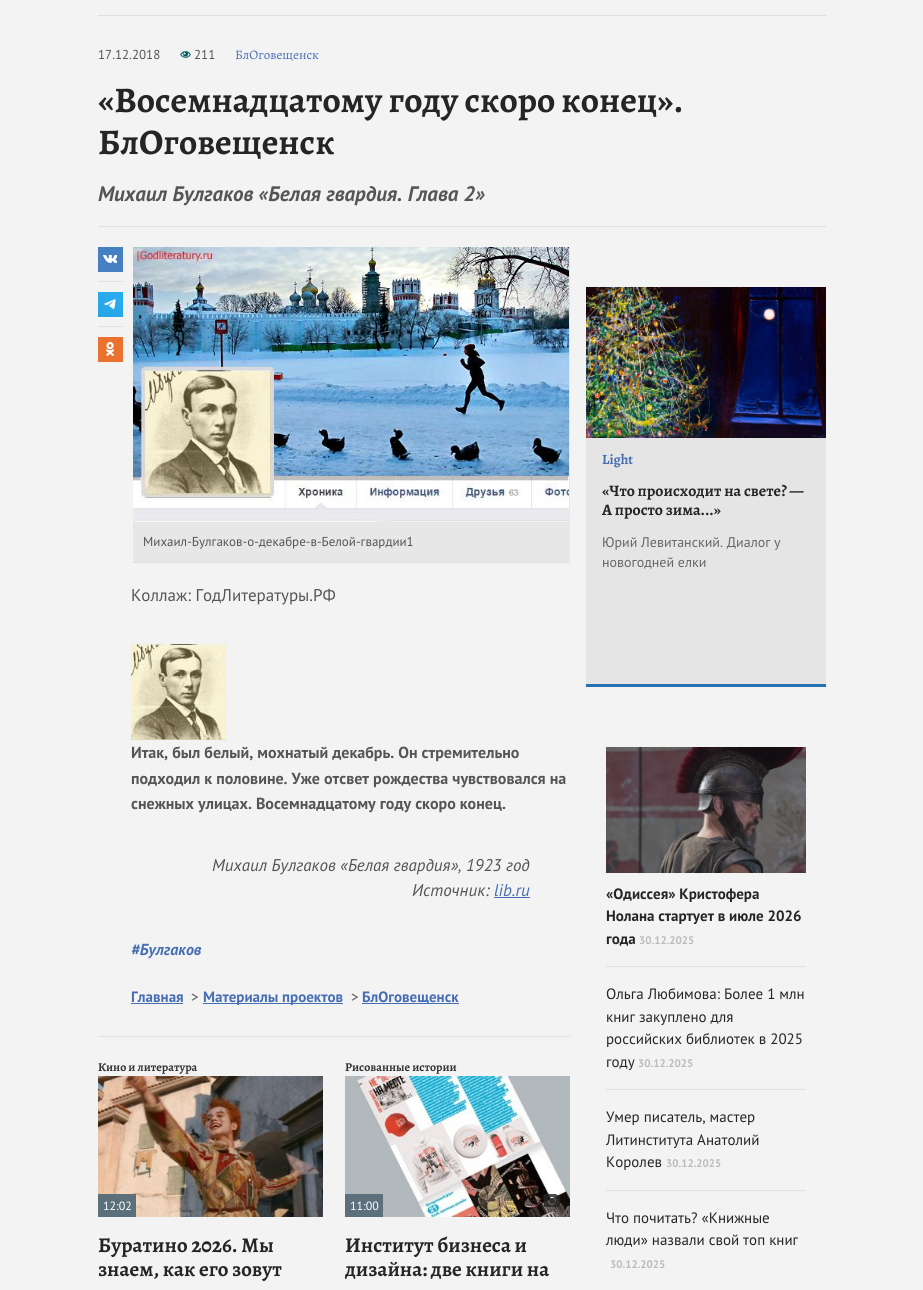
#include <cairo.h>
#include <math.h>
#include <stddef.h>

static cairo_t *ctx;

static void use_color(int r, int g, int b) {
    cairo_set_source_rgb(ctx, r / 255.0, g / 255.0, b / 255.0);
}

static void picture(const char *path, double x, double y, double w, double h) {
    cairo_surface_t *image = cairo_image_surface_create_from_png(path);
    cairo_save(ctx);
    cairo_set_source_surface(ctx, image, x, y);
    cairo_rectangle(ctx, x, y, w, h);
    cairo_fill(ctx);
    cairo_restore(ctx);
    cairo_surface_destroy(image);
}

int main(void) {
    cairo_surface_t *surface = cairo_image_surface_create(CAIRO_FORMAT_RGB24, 923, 1290);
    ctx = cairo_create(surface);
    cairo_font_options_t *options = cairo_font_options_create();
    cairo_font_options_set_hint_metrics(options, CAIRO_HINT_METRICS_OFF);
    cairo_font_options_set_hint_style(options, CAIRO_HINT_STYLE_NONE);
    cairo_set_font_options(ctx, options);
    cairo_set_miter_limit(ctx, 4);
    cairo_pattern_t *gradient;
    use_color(243, 243, 243);
    cairo_paint(ctx);
    use_color(224, 224, 224);
    cairo_rectangle(ctx, 98, 15, 728, 1);
    cairo_fill(ctx);
    cairo_select_font_face(ctx, "PT Sans", CAIRO_FONT_SLANT_NORMAL, CAIRO_FONT_WEIGHT_NORMAL);
    cairo_set_font_size(ctx, 13);
    use_color(85, 85, 85);
    cairo_move_to(ctx, 98, 59);
    cairo_show_text(ctx, "17.12.2018");
    picture("img1.png", 180, 51, 11, 7);
    cairo_move_to(ctx, 194, 59);
    cairo_show_text(ctx, "211");
    cairo_select_font_face(ctx, "Alegreya", CAIRO_FONT_SLANT_NORMAL, CAIRO_FONT_WEIGHT_NORMAL);
    use_color(70, 110, 178);
    cairo_move_to(ctx, 235, 59);
    cairo_show_text(ctx, "БлОговещенск");
    use_color(224, 224, 224);
    cairo_rectangle(ctx, 98, 226, 728, 1);
    cairo_fill(ctx);
    cairo_select_font_face(ctx, "Alegreya", CAIRO_FONT_SLANT_NORMAL, CAIRO_FONT_WEIGHT_BOLD);
    cairo_set_font_size(ctx, 36);
    use_color(37, 37, 37);
    cairo_move_to(ctx, 98, 112);
    cairo_show_text(ctx, "«Восемнадцатому году скоро конец».");
    cairo_move_to(ctx, 98, 154);
    cairo_show_text(ctx, "БлОговещенск");
    cairo_select_font_face(ctx, "PT Sans", CAIRO_FONT_SLANT_ITALIC, CAIRO_FONT_WEIGHT_BOLD);
    cairo_set_font_size(ctx, 21);
    use_color(85, 85, 85);
    cairo_move_to(ctx, 98, 201);
    cairo_show_text(ctx, "Михаил Булгаков «Белая гвардия. Глава 2»");
    use_color(70, 128, 194);
    cairo_rectangle(ctx, 98, 247, 25, 25);
    cairo_fill(ctx);
    picture("img2.png", 103, 255, 14, 8);
    use_color(224, 224, 224);
    cairo_rectangle(ctx, 98, 281, 25, 1);
    cairo_fill(ctx);
    gradient = cairo_pattern_create_linear(117, 289, 93, 347);
    cairo_pattern_add_color_stop_rgba(gradient, 0.11, 0.165, 0.671, 0.933, 1);
    cairo_pattern_add_color_stop_rgba(gradient, 1, 0.133, 0.62, 0.851, 1);
    cairo_set_source(ctx, gradient);
    cairo_pattern_destroy(gradient);
    cairo_rectangle(ctx, 98, 292, 25, 25);
    cairo_fill(ctx);
    picture("img3.png", 104, 299, 12, 10);
    use_color(224, 224, 224);
    cairo_rectangle(ctx, 98, 326, 25, 1);
    cairo_fill(ctx);
    use_color(235, 114, 46);
    cairo_rectangle(ctx, 98, 337, 25, 25);
    cairo_fill(ctx);
    picture("img4.png", 106, 342, 8, 14);
    use_color(231, 231, 231);
    cairo_rectangle(ctx, 133, 247, 437, 315);
    cairo_fill(ctx);
    picture("img5.png", 133, 247, 436, 275);
    use_color(224, 224, 224);
    cairo_rectangle(ctx, 133, 562, 437, 1);
    cairo_fill(ctx);
    cairo_select_font_face(ctx, "PT Sans", CAIRO_FONT_SLANT_NORMAL, CAIRO_FONT_WEIGHT_NORMAL);
    cairo_set_font_size(ctx, 13);
    use_color(85, 85, 85);
    cairo_move_to(ctx, 143, 546);
    cairo_show_text(ctx, "Михаил-Булгаков-о-декабре-в-Белой-гвардии1");
    cairo_set_font_size(ctx, 17);
    cairo_move_to(ctx, 131, 601);
    cairo_show_text(ctx, "Коллаж: ГодЛитературы.РФ");
    picture("img6.png", 131, 644, 95, 96);
    cairo_select_font_face(ctx, "PT Sans", CAIRO_FONT_SLANT_NORMAL, CAIRO_FONT_WEIGHT_BOLD);
    cairo_set_font_size(ctx, 16);
    cairo_move_to(ctx, 131, 758);
    cairo_show_text(ctx, "Итак, был белый, мохнатый декабрь. Он стремительно");
    cairo_move_to(ctx, 131, 784);
    cairo_show_text(ctx, "подходил к половине. Уже отсвет рождества чувствовался на");
    cairo_move_to(ctx, 131, 809);
    cairo_show_text(ctx, "снежных улицах. Восемнадцатому году скоро конец.");
    cairo_select_font_face(ctx, "PT Sans", CAIRO_FONT_SLANT_ITALIC, CAIRO_FONT_WEIGHT_NORMAL);
    cairo_set_font_size(ctx, 17);
    cairo_move_to(ctx, 212, 871);
    cairo_show_text(ctx, "Михаил Булгаков «Белая гвардия», 1923 год");
    cairo_move_to(ctx, 412, 896);
    cairo_show_text(ctx, "Источник:");
    use_color(70, 110, 178);
    cairo_move_to(ctx, 494, 896);
    cairo_show_text(ctx, "lib.ru");
    cairo_rectangle(ctx, 494, 897, 36, 1);
    cairo_fill(ctx);
    use_color(224, 224, 224);
    cairo_rectangle(ctx, 98, 1036, 472, 1);
    cairo_fill(ctx);
    cairo_select_font_face(ctx, "PT Sans", CAIRO_FONT_SLANT_ITALIC, CAIRO_FONT_WEIGHT_BOLD);
    cairo_set_font_size(ctx, 16);
    use_color(70, 110, 178);
    cairo_move_to(ctx, 131, 955);
    cairo_show_text(ctx, "#Булгаков");
    cairo_select_font_face(ctx, "PT Sans", CAIRO_FONT_SLANT_NORMAL, CAIRO_FONT_WEIGHT_BOLD);
    cairo_set_font_size(ctx, 15);
    cairo_move_to(ctx, 131, 1002);
    cairo_show_text(ctx, "Главная");
    cairo_rectangle(ctx, 131, 1003, 52, 1);
    cairo_fill(ctx);
    cairo_select_font_face(ctx, "PT Sans", CAIRO_FONT_SLANT_NORMAL, CAIRO_FONT_WEIGHT_NORMAL);
    use_color(85, 85, 85);
    cairo_move_to(ctx, 191, 1002);
    cairo_show_text(ctx, ">");
    use_color(70, 110, 178);
    cairo_rectangle(ctx, 203, 1003, 140, 1);
    cairo_fill(ctx);
    cairo_select_font_face(ctx, "PT Sans", CAIRO_FONT_SLANT_NORMAL, CAIRO_FONT_WEIGHT_BOLD);
    cairo_move_to(ctx, 203, 1002);
    cairo_show_text(ctx, "Материалы проектов");
    cairo_select_font_face(ctx, "PT Sans", CAIRO_FONT_SLANT_NORMAL, CAIRO_FONT_WEIGHT_NORMAL);
    use_color(85, 85, 85);
    cairo_move_to(ctx, 351, 1002);
    cairo_show_text(ctx, ">");
    use_color(70, 110, 178);
    cairo_rectangle(ctx, 362, 1003, 97, 1);
    cairo_fill(ctx);
    cairo_select_font_face(ctx, "PT Sans", CAIRO_FONT_SLANT_NORMAL, CAIRO_FONT_WEIGHT_BOLD);
    cairo_move_to(ctx, 362, 1002);
    cairo_show_text(ctx, "БлОговещенск");
    cairo_select_font_face(ctx, "Alegreya", CAIRO_FONT_SLANT_NORMAL, CAIRO_FONT_WEIGHT_BOLD);
    cairo_set_font_size(ctx, 12);
    use_color(51, 51, 51);
    cairo_move_to(ctx, 98, 1071);
    cairo_show_text(ctx, "Кино и литература");
    picture("img7.png", 98, 1076, 225, 141);
    use_color(92, 112, 124);
    cairo_rectangle(ctx, 98, 1194, 38, 23);
    cairo_fill(ctx);
    cairo_select_font_face(ctx, "PT Sans", CAIRO_FONT_SLANT_NORMAL, CAIRO_FONT_WEIGHT_NORMAL);
    use_color(255, 255, 255);
    cairo_move_to(ctx, 103, 1210);
    cairo_show_text(ctx, "12:02");
    cairo_select_font_face(ctx, "Alegreya", CAIRO_FONT_SLANT_NORMAL, CAIRO_FONT_WEIGHT_BOLD);
    cairo_set_font_size(ctx, 21);
    use_color(37, 37, 37);
    cairo_move_to(ctx, 98, 1252);
    cairo_show_text(ctx, "Буратино 2026. Мы");
    cairo_move_to(ctx, 98, 1276);
    cairo_show_text(ctx, "знаем, как его зовут");
    cairo_set_font_size(ctx, 12);
    use_color(51, 51, 51);
    cairo_move_to(ctx, 345, 1071);
    cairo_show_text(ctx, "Рисованные истории");
    picture("img8.png", 345, 1076, 225, 141);
    use_color(92, 112, 124);
    cairo_rectangle(ctx, 345, 1194, 38, 23);
    cairo_fill(ctx);
    cairo_select_font_face(ctx, "PT Sans", CAIRO_FONT_SLANT_NORMAL, CAIRO_FONT_WEIGHT_NORMAL);
    use_color(255, 255, 255);
    cairo_move_to(ctx, 350, 1210);
    cairo_show_text(ctx, "11:00");
    picture("img9.png", 544, 1194, 16, 13);
    cairo_select_font_face(ctx, "Alegreya", CAIRO_FONT_SLANT_NORMAL, CAIRO_FONT_WEIGHT_BOLD);
    cairo_set_font_size(ctx, 21);
    use_color(37, 37, 37);
    cairo_move_to(ctx, 345, 1252);
    cairo_show_text(ctx, "Институт бизнеса и");
    cairo_move_to(ctx, 345, 1276);
    cairo_show_text(ctx, "дизайна: две книги на");
    use_color(229, 229, 229);
    cairo_rectangle(ctx, 586, 438, 240, 246);
    cairo_fill(ctx);
    use_color(36, 114, 179);
    cairo_rectangle(ctx, 586, 684, 240, 3);
    cairo_fill(ctx);
    picture("img10.png", 586, 287, 240, 151);
    cairo_set_font_size(ctx, 14);
    use_color(70, 110, 178);
    cairo_move_to(ctx, 602, 464);
    cairo_show_text(ctx, "Light");
    cairo_set_font_size(ctx, 16);
    use_color(37, 37, 37);
    cairo_move_to(ctx, 602, 496);
    cairo_show_text(ctx, "«Что происходит на свете? —");
    cairo_move_to(ctx, 602, 515);
    cairo_show_text(ctx, "А просто зима...»");
    cairo_select_font_face(ctx, "PT Sans", CAIRO_FONT_SLANT_NORMAL, CAIRO_FONT_WEIGHT_NORMAL);
    cairo_set_font_size(ctx, 14);
    use_color(102, 102, 102);
    cairo_move_to(ctx, 602, 547);
    cairo_show_text(ctx, "Юрий Левитанский. Диалог у");
    cairo_move_to(ctx, 602, 567);
    cairo_show_text(ctx, "новогодней елки");
    use_color(224, 224, 224);
    cairo_rectangle(ctx, 606, 966, 200, 1);
    cairo_fill(ctx);
    picture("img11.png", 606, 747, 200, 126);
    cairo_select_font_face(ctx, "PT Sans", CAIRO_FONT_SLANT_NORMAL, CAIRO_FONT_WEIGHT_BOLD);
    cairo_set_font_size(ctx, 15);
    use_color(37, 37, 37);
    cairo_move_to(ctx, 606, 899);
    cairo_show_text(ctx, "«Одиссея» Кристофера");
    cairo_move_to(ctx, 606, 921);
    cairo_show_text(ctx, "Нолана стартует в июле 2026");
    cairo_move_to(ctx, 606, 944);
    cairo_show_text(ctx, "года");
    cairo_set_font_size(ctx, 11);
    use_color(187, 187, 187);
    cairo_move_to(ctx, 639, 944);
    cairo_show_text(ctx, "30.12.2025");
    use_color(224, 224, 224);
    cairo_rectangle(ctx, 606, 1089, 200, 1);
    cairo_fill(ctx);
    cairo_select_font_face(ctx, "PT Sans", CAIRO_FONT_SLANT_NORMAL, CAIRO_FONT_WEIGHT_NORMAL);
    cairo_set_font_size(ctx, 15);
    use_color(37, 37, 37);
    cairo_move_to(ctx, 606, 999);
    cairo_show_text(ctx, "Ольга Любимова: Более 1 млн");
    cairo_move_to(ctx, 606, 1022);
    cairo_show_text(ctx, "книг закуплено для");
    cairo_move_to(ctx, 606, 1044);
    cairo_show_text(ctx, "российских библиотек в 2025");
    cairo_move_to(ctx, 606, 1067);
    cairo_show_text(ctx, "году");
    cairo_select_font_face(ctx, "PT Sans", CAIRO_FONT_SLANT_NORMAL, CAIRO_FONT_WEIGHT_BOLD);
    cairo_set_font_size(ctx, 11);
    use_color(187, 187, 187);
    cairo_move_to(ctx, 638, 1067);
    cairo_show_text(ctx, "30.12.2025");
    use_color(224, 224, 224);
    cairo_rectangle(ctx, 606, 1190, 200, 1);
    cairo_fill(ctx);
    cairo_select_font_face(ctx, "PT Sans", CAIRO_FONT_SLANT_NORMAL, CAIRO_FONT_WEIGHT_NORMAL);
    cairo_set_font_size(ctx, 15);
    use_color(37, 37, 37);
    cairo_move_to(ctx, 606, 1122);
    cairo_show_text(ctx, "Умер писатель, мастер");
    cairo_move_to(ctx, 606, 1145);
    cairo_show_text(ctx, "Литинститута Анатолий");
    cairo_move_to(ctx, 606, 1167);
    cairo_show_text(ctx, "Королев");
    cairo_select_font_face(ctx, "PT Sans", CAIRO_FONT_SLANT_NORMAL, CAIRO_FONT_WEIGHT_BOLD);
    cairo_set_font_size(ctx, 11);
    use_color(187, 187, 187);
    cairo_move_to(ctx, 666, 1167);
    cairo_show_text(ctx, "30.12.2025");
    cairo_select_font_face(ctx, "PT Sans", CAIRO_FONT_SLANT_NORMAL, CAIRO_FONT_WEIGHT_NORMAL);
    cairo_set_font_size(ctx, 15);
    use_color(37, 37, 37);
    cairo_move_to(ctx, 606, 1223);
    cairo_show_text(ctx, "Что почитать? «Книжные");
    cairo_move_to(ctx, 606, 1245);
    cairo_show_text(ctx, "люди» назвали свой топ книг");
    cairo_select_font_face(ctx, "PT Sans", CAIRO_FONT_SLANT_NORMAL, CAIRO_FONT_WEIGHT_BOLD);
    cairo_set_font_size(ctx, 11);
    use_color(187, 187, 187);
    cairo_move_to(ctx, 610, 1268);
    cairo_show_text(ctx, "30.12.2025");
    cairo_surface_write_to_png(surface, "result.png");
    cairo_font_options_destroy(options);
    cairo_destroy(ctx);
    cairo_surface_destroy(surface);
    return 0;
}
